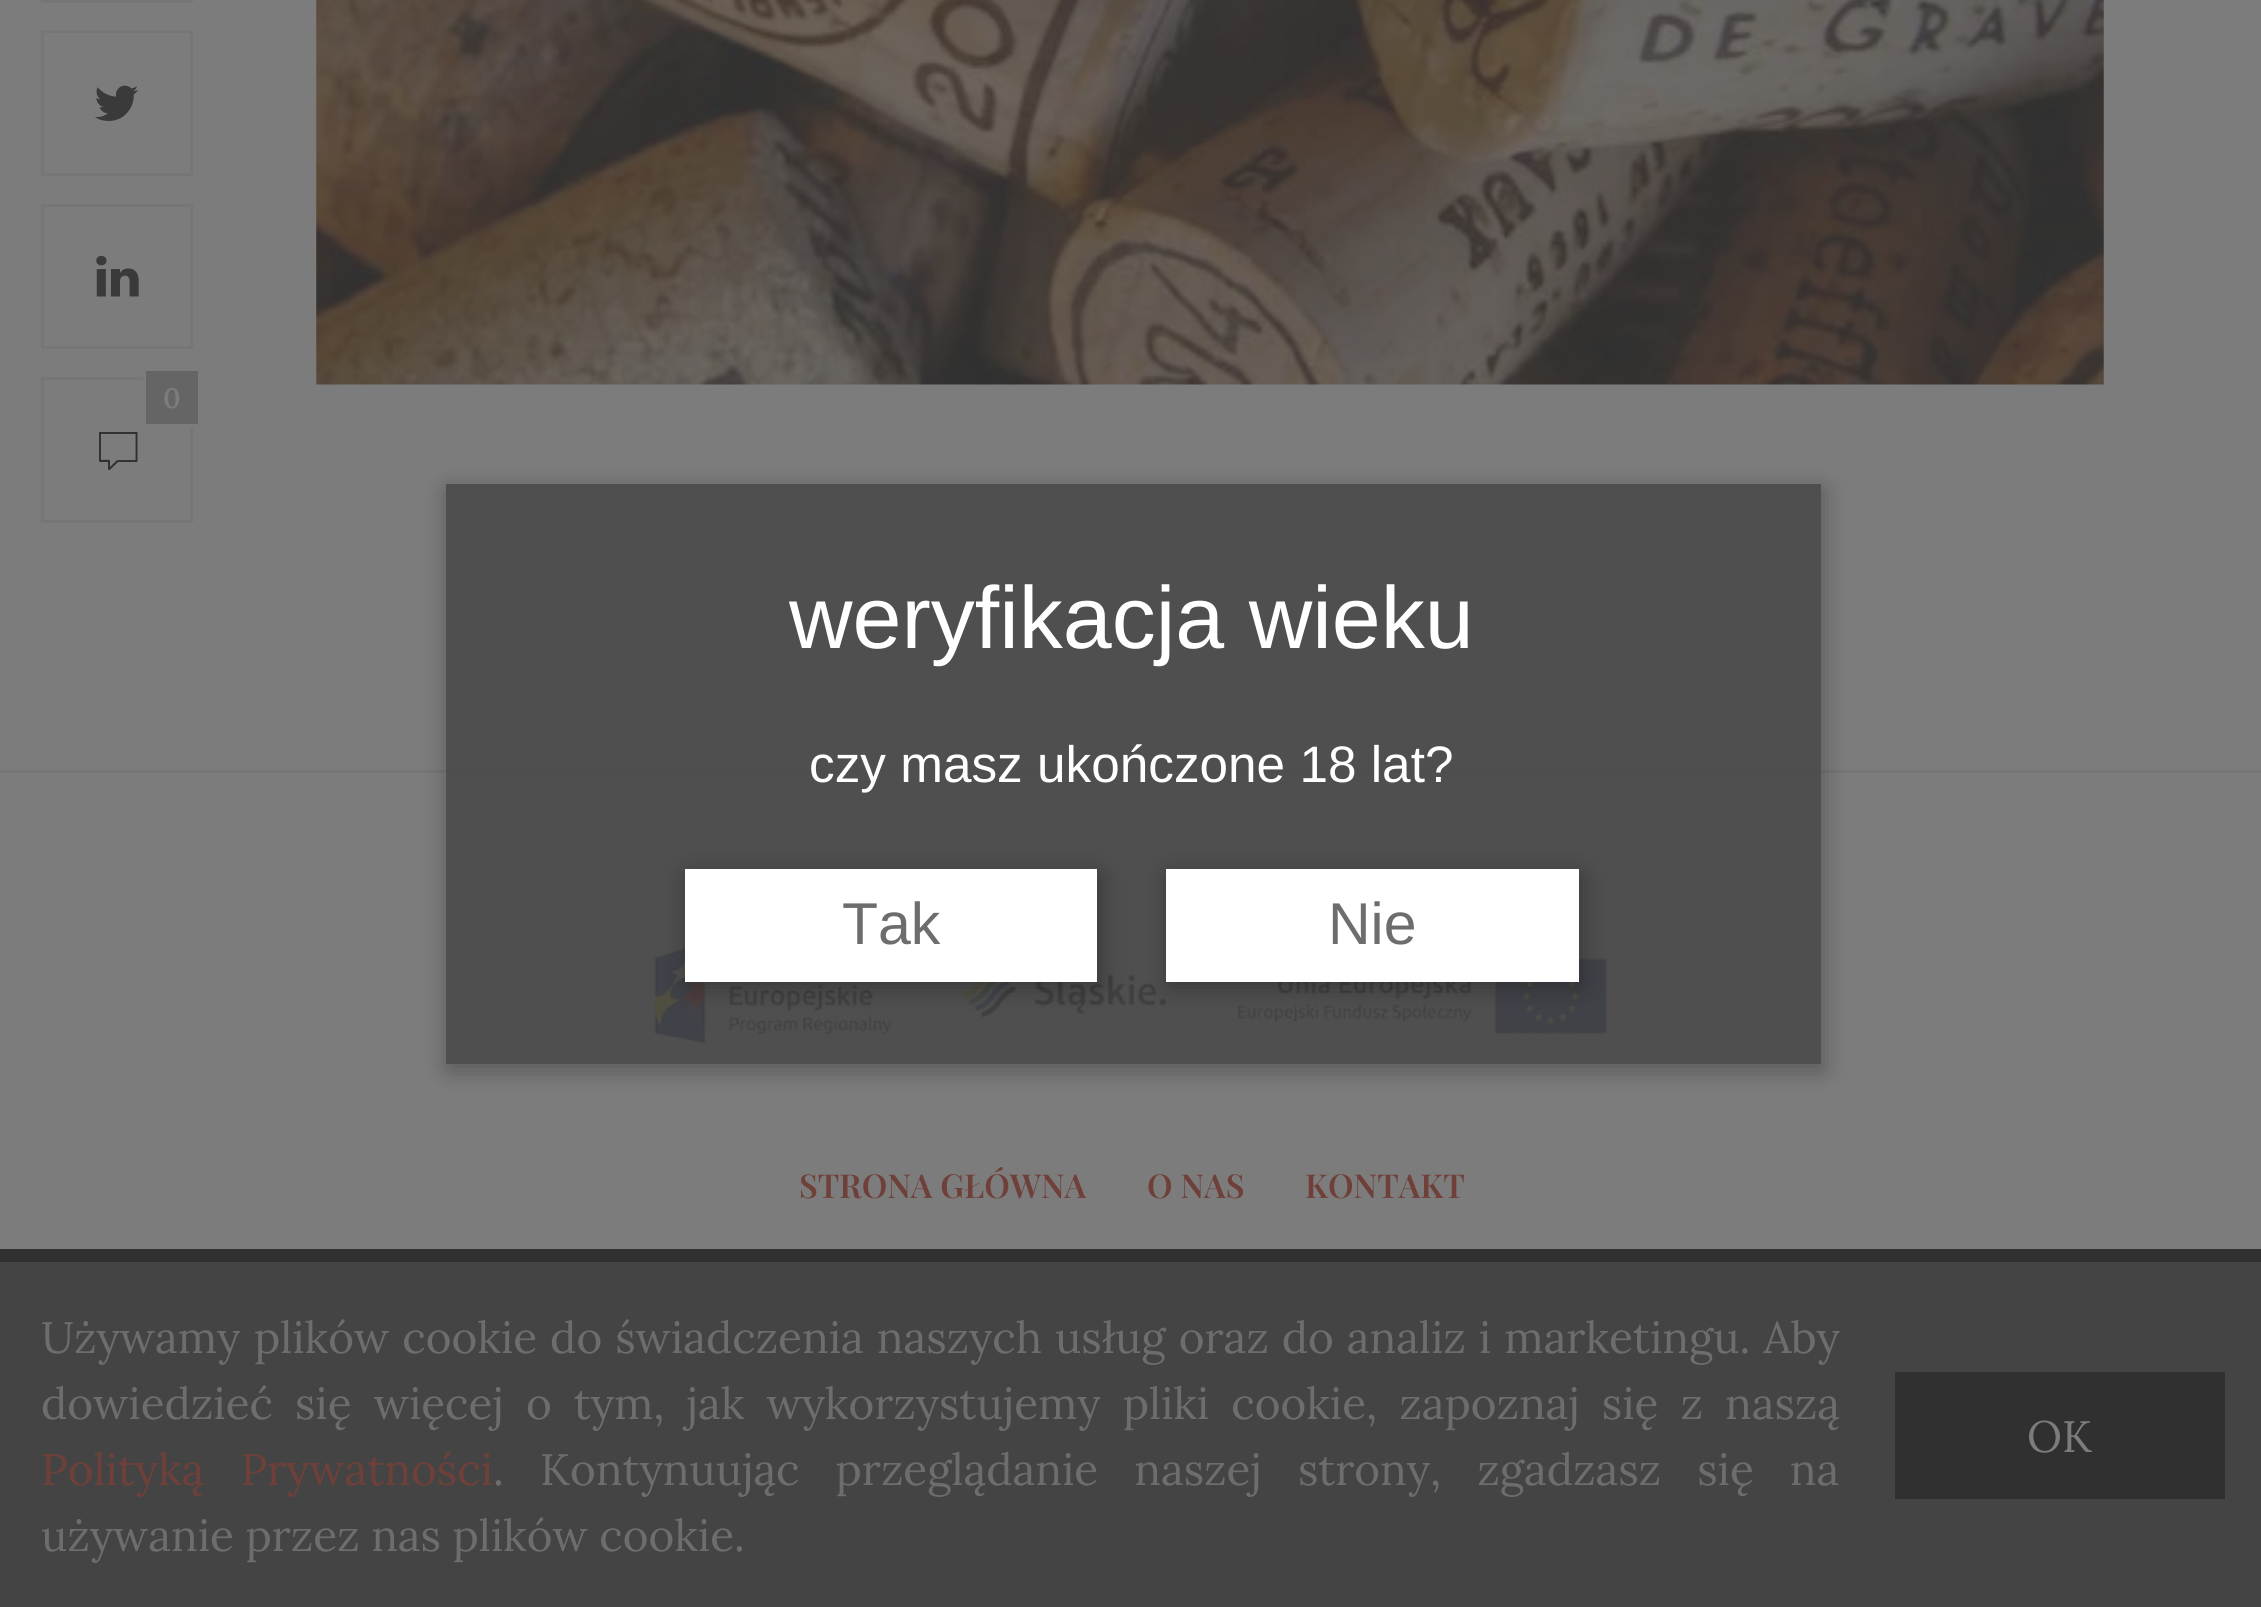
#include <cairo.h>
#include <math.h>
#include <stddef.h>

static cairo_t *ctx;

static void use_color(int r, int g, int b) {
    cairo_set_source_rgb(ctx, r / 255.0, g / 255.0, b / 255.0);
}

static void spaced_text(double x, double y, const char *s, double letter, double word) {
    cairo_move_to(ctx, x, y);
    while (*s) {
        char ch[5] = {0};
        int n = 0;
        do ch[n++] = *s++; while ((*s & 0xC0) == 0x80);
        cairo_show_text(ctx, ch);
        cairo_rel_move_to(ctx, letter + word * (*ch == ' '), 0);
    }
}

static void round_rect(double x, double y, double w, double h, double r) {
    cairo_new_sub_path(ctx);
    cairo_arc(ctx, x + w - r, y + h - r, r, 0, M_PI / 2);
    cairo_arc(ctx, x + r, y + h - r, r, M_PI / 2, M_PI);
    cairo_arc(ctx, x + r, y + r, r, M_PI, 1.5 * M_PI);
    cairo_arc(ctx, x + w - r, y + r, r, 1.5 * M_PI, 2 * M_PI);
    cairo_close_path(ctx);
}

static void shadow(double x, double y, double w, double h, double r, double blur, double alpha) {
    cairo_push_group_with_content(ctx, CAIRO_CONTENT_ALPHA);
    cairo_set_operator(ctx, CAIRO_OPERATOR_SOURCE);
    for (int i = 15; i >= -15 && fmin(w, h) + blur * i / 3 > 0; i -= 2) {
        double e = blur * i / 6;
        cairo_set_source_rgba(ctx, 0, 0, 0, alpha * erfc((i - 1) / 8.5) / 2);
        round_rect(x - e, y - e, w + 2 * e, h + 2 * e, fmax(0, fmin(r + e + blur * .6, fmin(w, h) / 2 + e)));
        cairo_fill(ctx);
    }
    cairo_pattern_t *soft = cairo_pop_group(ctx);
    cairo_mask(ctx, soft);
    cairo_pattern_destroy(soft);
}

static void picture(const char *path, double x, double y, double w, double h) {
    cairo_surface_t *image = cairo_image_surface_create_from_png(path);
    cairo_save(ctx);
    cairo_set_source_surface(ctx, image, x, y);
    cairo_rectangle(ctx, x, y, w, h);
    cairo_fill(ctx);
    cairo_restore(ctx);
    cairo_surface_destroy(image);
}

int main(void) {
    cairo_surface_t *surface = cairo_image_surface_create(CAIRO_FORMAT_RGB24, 2261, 1607);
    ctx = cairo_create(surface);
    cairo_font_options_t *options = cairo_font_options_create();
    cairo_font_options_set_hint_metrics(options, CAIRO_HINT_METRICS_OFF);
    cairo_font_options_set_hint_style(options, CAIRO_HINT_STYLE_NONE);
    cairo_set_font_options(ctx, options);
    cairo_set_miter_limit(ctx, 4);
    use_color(124, 124, 124);
    cairo_paint(ctx);
    picture("img1.png", 316, 0, 1788, 385);
    cairo_rectangle(ctx, 42.5, -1.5, 149, 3);
    use_color(118, 118, 118);
    cairo_set_line_width(ctx, 3);
    cairo_stroke(ctx);
    cairo_rectangle(ctx, 42.5, 31.5, 149, 143);
    cairo_stroke(ctx);
    picture("img2.png", 95, 85, 43, 36);
    cairo_rectangle(ctx, 42.5, 205.5, 149, 142);
    cairo_stroke(ctx);
    picture("img3.png", 96, 255, 43, 42);
    cairo_rectangle(ctx, 42.5, 378.5, 149, 143);
    cairo_stroke(ctx);
    use_color(101, 101, 101);
    cairo_rectangle(ctx, 146, 371, 52, 53);
    cairo_fill(ctx);
    use_color(124, 124, 124);
    cairo_rectangle(ctx, 190, 424, 8, 3);
    cairo_fill(ctx);
    cairo_rectangle(ctx, 143, 371, 3, 9);
    cairo_fill(ctx);
    cairo_select_font_face(ctx, "Lora SemiBold", CAIRO_FONT_SLANT_NORMAL, CAIRO_FONT_WEIGHT_NORMAL);
    cairo_set_font_size(ctx, 28);
    cairo_move_to(ctx, 163, 408);
    cairo_show_text(ctx, "0");
    picture("img4.png", 99, 432, 39, 38);
    use_color(117, 117, 117);
    cairo_rectangle(ctx, 0, 770, 2261, 3);
    cairo_fill(ctx);
    picture("img5.png", 643, 937, 977, 111);
    cairo_select_font_face(ctx, "Playfair Display SemiBold", CAIRO_FONT_SLANT_NORMAL, CAIRO_FONT_WEIGHT_NORMAL);
    cairo_set_font_size(ctx, 33);
    use_color(111, 64, 57);
    cairo_move_to(ctx, 799, 1198);
    cairo_show_text(ctx, "STRONA GŁÓWNA");
    cairo_move_to(ctx, 1147, 1198);
    cairo_show_text(ctx, "O NAS");
    cairo_move_to(ctx, 1305, 1198);
    cairo_show_text(ctx, "KONTAKT");
    cairo_save(ctx);
    cairo_set_fill_rule(ctx, CAIRO_FILL_RULE_EVEN_ODD);
    cairo_new_path(ctx);
    cairo_move_to(ctx, 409, 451);
    cairo_line_to(ctx, 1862, 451);
    cairo_line_to(ctx, 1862, 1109);
    cairo_line_to(ctx, 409, 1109);
    cairo_close_path(ctx);
    cairo_move_to(ctx, 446, 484);
    cairo_line_to(ctx, 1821, 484);
    cairo_line_to(ctx, 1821, 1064);
    cairo_line_to(ctx, 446, 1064);
    cairo_close_path(ctx);
    cairo_clip(ctx);
    use_color(0, 0, 0);
    shadow(448, 490, 1375, 580, 0, 12.5, 0.3);
    cairo_restore(ctx);
    cairo_set_source_rgba(ctx, 0.259, 0.259, 0.259, 0.77);
    cairo_rectangle(ctx, 446, 484, 1375, 580);
    cairo_fill(ctx);
    cairo_select_font_face(ctx, "Liberation Sans", CAIRO_FONT_SLANT_NORMAL, CAIRO_FONT_WEIGHT_NORMAL);
    cairo_set_font_size(ctx, 88);
    use_color(255, 255, 255);
    cairo_move_to(ctx, 789, 648);
    cairo_show_text(ctx, "weryfikacja wieku");
    cairo_set_font_size(ctx, 51.3);
    cairo_move_to(ctx, 809, 782);
    cairo_show_text(ctx, "czy masz ukończone 18 lat?");
    use_color(0, 0, 0);
    shadow(688, 875, 412, 112, 0, 12.5, 0.3);
    use_color(255, 255, 255);
    cairo_rectangle(ctx, 685, 869, 412, 113);
    cairo_fill(ctx);
    cairo_set_font_size(ctx, 59);
    use_color(109, 109, 109);
    cairo_move_to(ctx, 842, 944);
    cairo_show_text(ctx, "Tak");
    use_color(0, 0, 0);
    shadow(1169, 875, 412, 112, 0, 12.5, 0.3);
    use_color(255, 255, 255);
    cairo_rectangle(ctx, 1166, 869, 413, 113);
    cairo_fill(ctx);
    use_color(109, 109, 109);
    cairo_move_to(ctx, 1328, 944);
    cairo_show_text(ctx, "Nie");
    use_color(68, 68, 68);
    cairo_rectangle(ctx, 0, 1262, 2261, 345);
    cairo_fill(ctx);
    use_color(48, 48, 48);
    cairo_rectangle(ctx, 0, 1249, 2261, 13);
    cairo_fill(ctx);
    cairo_select_font_face(ctx, "Lora", CAIRO_FONT_SLANT_NORMAL, CAIRO_FONT_WEIGHT_NORMAL);
    cairo_set_font_size(ctx, 44);
    use_color(109, 109, 109);
    cairo_move_to(ctx, 41, 1353);
    cairo_show_text(ctx, "Używamy");
    spaced_text(254, 1353, "plików cookie do świadczenia naszych usług oraz do analiz i marketingu. Aby", 0, 1.5);
    spaced_text(41, 1419, "dowiedzieć się więcej o tym, jak wykorzystujemy pliki cookie, zapoznaj się z naszą", 0, 10.5);
    use_color(111, 64, 57);
    spaced_text(41, 1485, "Polityką Prywatności", 0, 24.5);
    use_color(109, 109, 109);
    spaced_text(493, 1485, ". Kontynuując przeglądanie naszej strony, zgadzasz się na", 0, 24.5);
    cairo_move_to(ctx, 41, 1551);
    cairo_show_text(ctx, "używanie przez nas plików cookie.");
    use_color(48, 48, 48);
    cairo_rectangle(ctx, 1895, 1372, 330, 127);
    cairo_fill(ctx);
    use_color(124, 124, 124);
    cairo_move_to(ctx, 2027, 1452);
    cairo_show_text(ctx, "OK");
    cairo_surface_write_to_png(surface, "result.png");
    cairo_font_options_destroy(options);
    cairo_destroy(ctx);
    cairo_surface_destroy(surface);
    return 0;
}
